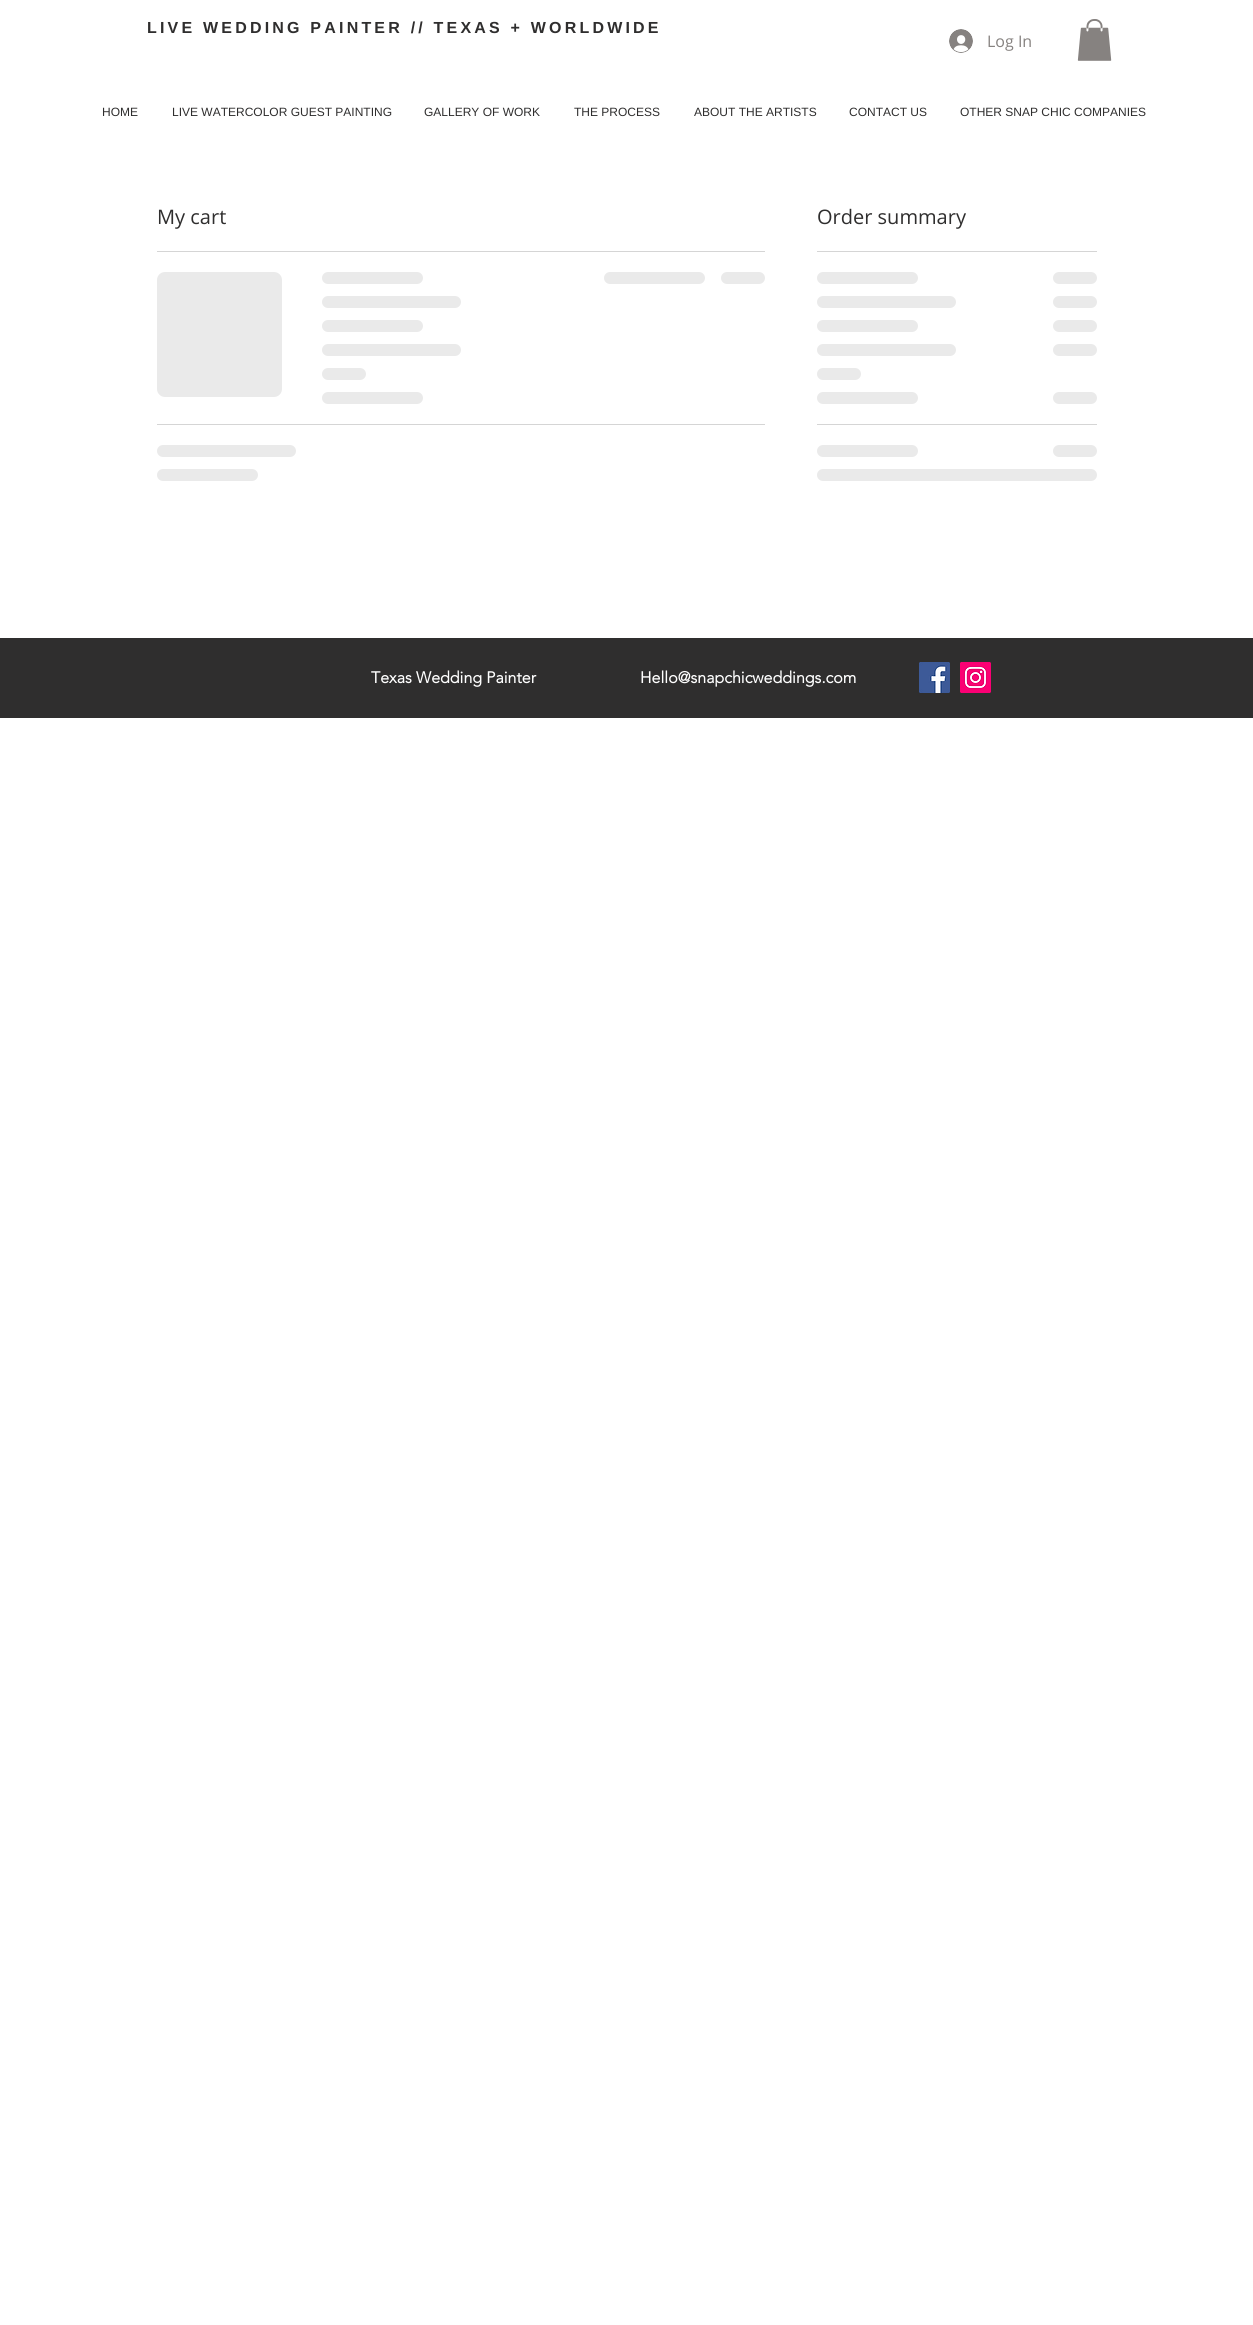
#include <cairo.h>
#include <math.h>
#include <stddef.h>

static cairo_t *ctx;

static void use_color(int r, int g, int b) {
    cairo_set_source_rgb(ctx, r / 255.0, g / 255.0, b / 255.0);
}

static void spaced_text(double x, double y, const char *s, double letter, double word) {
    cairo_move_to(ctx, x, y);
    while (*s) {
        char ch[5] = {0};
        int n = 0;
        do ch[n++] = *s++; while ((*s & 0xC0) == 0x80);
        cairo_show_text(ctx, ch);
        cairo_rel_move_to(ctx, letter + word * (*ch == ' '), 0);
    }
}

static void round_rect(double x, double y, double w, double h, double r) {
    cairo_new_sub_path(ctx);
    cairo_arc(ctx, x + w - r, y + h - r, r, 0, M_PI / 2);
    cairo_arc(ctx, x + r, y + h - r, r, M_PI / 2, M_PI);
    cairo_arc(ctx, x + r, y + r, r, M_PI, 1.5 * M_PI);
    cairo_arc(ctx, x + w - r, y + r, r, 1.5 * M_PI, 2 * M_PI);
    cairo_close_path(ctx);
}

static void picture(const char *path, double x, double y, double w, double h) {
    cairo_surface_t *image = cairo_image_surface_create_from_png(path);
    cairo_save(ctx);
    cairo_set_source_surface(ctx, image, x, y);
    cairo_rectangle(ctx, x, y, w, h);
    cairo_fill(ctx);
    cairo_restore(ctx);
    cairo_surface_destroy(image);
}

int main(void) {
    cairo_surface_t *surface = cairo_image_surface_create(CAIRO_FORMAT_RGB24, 1253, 2325);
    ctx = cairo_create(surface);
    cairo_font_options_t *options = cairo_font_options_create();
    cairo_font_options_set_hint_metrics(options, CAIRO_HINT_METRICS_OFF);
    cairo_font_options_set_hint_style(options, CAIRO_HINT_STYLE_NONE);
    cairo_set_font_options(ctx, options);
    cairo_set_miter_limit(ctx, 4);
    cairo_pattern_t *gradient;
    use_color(255, 255, 255);
    cairo_paint(ctx);
    cairo_select_font_face(ctx, "Liberation Sans", CAIRO_FONT_SLANT_NORMAL, CAIRO_FONT_WEIGHT_BOLD);
    cairo_set_font_size(ctx, 16);
    use_color(47, 46, 46);
    spaced_text(147, 33, "LIVE WEDDING PAINTER // TEXAS + WORLDWIDE", 3.2, 0);
    picture("img1.png", 1077, 19, 35, 42);
    picture("img2.png", 949, 29, 24, 24);
    cairo_select_font_face(ctx, "Open Sans", CAIRO_FONT_SLANT_NORMAL, CAIRO_FONT_WEIGHT_NORMAL);
    use_color(134, 130, 128);
    cairo_move_to(ctx, 987, 47);
    cairo_show_text(ctx, "Log In");
    cairo_select_font_face(ctx, "Liberation Sans", CAIRO_FONT_SLANT_NORMAL, CAIRO_FONT_WEIGHT_NORMAL);
    cairo_set_font_size(ctx, 12);
    use_color(47, 46, 46);
    cairo_move_to(ctx, 102, 116);
    cairo_show_text(ctx, "HOME");
    cairo_move_to(ctx, 172, 116);
    cairo_show_text(ctx, "LIVE WATERCOLOR GUEST PAINTING");
    cairo_move_to(ctx, 424, 116);
    cairo_show_text(ctx, "GALLERY OF WORK");
    cairo_move_to(ctx, 574, 116);
    cairo_show_text(ctx, "THE PROCESS");
    cairo_move_to(ctx, 694, 116);
    cairo_show_text(ctx, "ABOUT THE ARTISTS");
    cairo_move_to(ctx, 849, 116);
    cairo_show_text(ctx, "CONTACT US");
    cairo_move_to(ctx, 960, 116);
    cairo_show_text(ctx, "OTHER SNAP CHIC COMPANIES");
    use_color(213, 213, 213);
    cairo_rectangle(ctx, 157, 251, 608, 1);
    cairo_fill(ctx);
    cairo_select_font_face(ctx, "Open Sans", CAIRO_FONT_SLANT_NORMAL, CAIRO_FONT_WEIGHT_NORMAL);
    cairo_set_font_size(ctx, 20);
    use_color(47, 46, 46);
    cairo_move_to(ctx, 157, 224);
    cairo_show_text(ctx, "My cart");
    gradient = cairo_pattern_create_linear(157, 335, 657, 335);
    cairo_pattern_add_color_stop_rgba(gradient, 0.25, 0.918, 0.918, 0.918, 1);
    cairo_pattern_add_color_stop_rgba(gradient, 0.37, 0.835, 0.835, 0.835, 1);
    cairo_pattern_add_color_stop_rgba(gradient, 0.63, 0.918, 0.918, 0.918, 1);
    cairo_set_source(ctx, gradient);
    cairo_pattern_destroy(gradient);
    round_rect(157, 272, 125, 125, 8);
    cairo_fill(ctx);
    gradient = cairo_pattern_create_linear(322, 278, 726, 278);
    cairo_pattern_add_color_stop_rgba(gradient, 0.25, 0.918, 0.918, 0.918, 1);
    cairo_pattern_add_color_stop_rgba(gradient, 0.37, 0.835, 0.835, 0.835, 1);
    cairo_pattern_add_color_stop_rgba(gradient, 0.63, 0.918, 0.918, 0.918, 1);
    cairo_set_source(ctx, gradient);
    cairo_pattern_destroy(gradient);
    round_rect(322, 272, 101, 12, 6);
    cairo_fill(ctx);
    gradient = cairo_pattern_create_linear(322, 302, 878, 302);
    cairo_pattern_add_color_stop_rgba(gradient, 0.25, 0.918, 0.918, 0.918, 1);
    cairo_pattern_add_color_stop_rgba(gradient, 0.37, 0.835, 0.835, 0.835, 1);
    cairo_pattern_add_color_stop_rgba(gradient, 0.63, 0.918, 0.918, 0.918, 1);
    cairo_set_source(ctx, gradient);
    cairo_pattern_destroy(gradient);
    round_rect(322, 296, 139, 12, 6);
    cairo_fill(ctx);
    gradient = cairo_pattern_create_linear(322, 326, 726, 326);
    cairo_pattern_add_color_stop_rgba(gradient, 0.25, 0.918, 0.918, 0.918, 1);
    cairo_pattern_add_color_stop_rgba(gradient, 0.37, 0.835, 0.835, 0.835, 1);
    cairo_pattern_add_color_stop_rgba(gradient, 0.63, 0.918, 0.918, 0.918, 1);
    cairo_set_source(ctx, gradient);
    cairo_pattern_destroy(gradient);
    round_rect(322, 320, 101, 12, 6);
    cairo_fill(ctx);
    gradient = cairo_pattern_create_linear(322, 350, 878, 350);
    cairo_pattern_add_color_stop_rgba(gradient, 0.25, 0.918, 0.918, 0.918, 1);
    cairo_pattern_add_color_stop_rgba(gradient, 0.37, 0.835, 0.835, 0.835, 1);
    cairo_pattern_add_color_stop_rgba(gradient, 0.63, 0.918, 0.918, 0.918, 1);
    cairo_set_source(ctx, gradient);
    cairo_pattern_destroy(gradient);
    round_rect(322, 344, 139, 12, 6);
    cairo_fill(ctx);
    gradient = cairo_pattern_create_linear(322, 374, 498, 374);
    cairo_pattern_add_color_stop_rgba(gradient, 0.25, 0.918, 0.918, 0.918, 1);
    cairo_pattern_add_color_stop_rgba(gradient, 0.37, 0.835, 0.835, 0.835, 1);
    cairo_pattern_add_color_stop_rgba(gradient, 0.63, 0.918, 0.918, 0.918, 1);
    cairo_set_source(ctx, gradient);
    cairo_pattern_destroy(gradient);
    round_rect(322, 368, 44, 12, 6);
    cairo_fill(ctx);
    gradient = cairo_pattern_create_linear(322, 398, 726, 398);
    cairo_pattern_add_color_stop_rgba(gradient, 0.25, 0.918, 0.918, 0.918, 1);
    cairo_pattern_add_color_stop_rgba(gradient, 0.37, 0.835, 0.835, 0.835, 1);
    cairo_pattern_add_color_stop_rgba(gradient, 0.63, 0.918, 0.918, 0.918, 1);
    cairo_set_source(ctx, gradient);
    cairo_pattern_destroy(gradient);
    round_rect(322, 392, 101, 12, 6);
    cairo_fill(ctx);
    gradient = cairo_pattern_create_linear(604, 278, 1008, 278);
    cairo_pattern_add_color_stop_rgba(gradient, 0.25, 0.918, 0.918, 0.918, 1);
    cairo_pattern_add_color_stop_rgba(gradient, 0.37, 0.835, 0.835, 0.835, 1);
    cairo_pattern_add_color_stop_rgba(gradient, 0.63, 0.918, 0.918, 0.918, 1);
    cairo_set_source(ctx, gradient);
    cairo_pattern_destroy(gradient);
    round_rect(604, 272, 101, 12, 6);
    cairo_fill(ctx);
    gradient = cairo_pattern_create_linear(721, 278, 897, 278);
    cairo_pattern_add_color_stop_rgba(gradient, 0.25, 0.918, 0.918, 0.918, 1);
    cairo_pattern_add_color_stop_rgba(gradient, 0.37, 0.835, 0.835, 0.835, 1);
    cairo_pattern_add_color_stop_rgba(gradient, 0.63, 0.918, 0.918, 0.918, 1);
    cairo_set_source(ctx, gradient);
    cairo_pattern_destroy(gradient);
    round_rect(721, 272, 44, 12, 6);
    cairo_fill(ctx);
    use_color(213, 213, 213);
    cairo_rectangle(ctx, 157, 424, 608, 1);
    cairo_fill(ctx);
    gradient = cairo_pattern_create_linear(157, 451, 713, 451);
    cairo_pattern_add_color_stop_rgba(gradient, 0.25, 0.918, 0.918, 0.918, 1);
    cairo_pattern_add_color_stop_rgba(gradient, 0.37, 0.835, 0.835, 0.835, 1);
    cairo_pattern_add_color_stop_rgba(gradient, 0.63, 0.918, 0.918, 0.918, 1);
    cairo_set_source(ctx, gradient);
    cairo_pattern_destroy(gradient);
    round_rect(157, 445, 139, 12, 6);
    cairo_fill(ctx);
    gradient = cairo_pattern_create_linear(157, 475, 561, 475);
    cairo_pattern_add_color_stop_rgba(gradient, 0.25, 0.918, 0.918, 0.918, 1);
    cairo_pattern_add_color_stop_rgba(gradient, 0.37, 0.835, 0.835, 0.835, 1);
    cairo_pattern_add_color_stop_rgba(gradient, 0.63, 0.918, 0.918, 0.918, 1);
    cairo_set_source(ctx, gradient);
    cairo_pattern_destroy(gradient);
    round_rect(157, 469, 101, 12, 6);
    cairo_fill(ctx);
    use_color(213, 213, 213);
    cairo_rectangle(ctx, 817, 251, 280, 1);
    cairo_fill(ctx);
    use_color(47, 46, 46);
    cairo_move_to(ctx, 817, 224);
    cairo_show_text(ctx, "Order summary");
    gradient = cairo_pattern_create_linear(817, 278, 1221, 278);
    cairo_pattern_add_color_stop_rgba(gradient, 0.25, 0.918, 0.918, 0.918, 1);
    cairo_pattern_add_color_stop_rgba(gradient, 0.37, 0.835, 0.835, 0.835, 1);
    cairo_pattern_add_color_stop_rgba(gradient, 0.63, 0.918, 0.918, 0.918, 1);
    cairo_set_source(ctx, gradient);
    cairo_pattern_destroy(gradient);
    round_rect(817, 272, 101, 12, 6);
    cairo_fill(ctx);
    gradient = cairo_pattern_create_linear(1053, 278, 1229, 278);
    cairo_pattern_add_color_stop_rgba(gradient, 0.25, 0.918, 0.918, 0.918, 1);
    cairo_pattern_add_color_stop_rgba(gradient, 0.37, 0.835, 0.835, 0.835, 1);
    cairo_pattern_add_color_stop_rgba(gradient, 0.63, 0.918, 0.918, 0.918, 1);
    cairo_set_source(ctx, gradient);
    cairo_pattern_destroy(gradient);
    round_rect(1053, 272, 44, 12, 6);
    cairo_fill(ctx);
    gradient = cairo_pattern_create_linear(817, 302, 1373, 302);
    cairo_pattern_add_color_stop_rgba(gradient, 0.25, 0.918, 0.918, 0.918, 1);
    cairo_pattern_add_color_stop_rgba(gradient, 0.37, 0.835, 0.835, 0.835, 1);
    cairo_pattern_add_color_stop_rgba(gradient, 0.63, 0.918, 0.918, 0.918, 1);
    cairo_set_source(ctx, gradient);
    cairo_pattern_destroy(gradient);
    round_rect(817, 296, 139, 12, 6);
    cairo_fill(ctx);
    gradient = cairo_pattern_create_linear(1053, 302, 1229, 302);
    cairo_pattern_add_color_stop_rgba(gradient, 0.25, 0.918, 0.918, 0.918, 1);
    cairo_pattern_add_color_stop_rgba(gradient, 0.37, 0.835, 0.835, 0.835, 1);
    cairo_pattern_add_color_stop_rgba(gradient, 0.63, 0.918, 0.918, 0.918, 1);
    cairo_set_source(ctx, gradient);
    cairo_pattern_destroy(gradient);
    round_rect(1053, 296, 44, 12, 6);
    cairo_fill(ctx);
    gradient = cairo_pattern_create_linear(817, 326, 1221, 326);
    cairo_pattern_add_color_stop_rgba(gradient, 0.25, 0.918, 0.918, 0.918, 1);
    cairo_pattern_add_color_stop_rgba(gradient, 0.37, 0.835, 0.835, 0.835, 1);
    cairo_pattern_add_color_stop_rgba(gradient, 0.63, 0.918, 0.918, 0.918, 1);
    cairo_set_source(ctx, gradient);
    cairo_pattern_destroy(gradient);
    round_rect(817, 320, 101, 12, 6);
    cairo_fill(ctx);
    gradient = cairo_pattern_create_linear(1053, 326, 1229, 326);
    cairo_pattern_add_color_stop_rgba(gradient, 0.25, 0.918, 0.918, 0.918, 1);
    cairo_pattern_add_color_stop_rgba(gradient, 0.37, 0.835, 0.835, 0.835, 1);
    cairo_pattern_add_color_stop_rgba(gradient, 0.63, 0.918, 0.918, 0.918, 1);
    cairo_set_source(ctx, gradient);
    cairo_pattern_destroy(gradient);
    round_rect(1053, 320, 44, 12, 6);
    cairo_fill(ctx);
    gradient = cairo_pattern_create_linear(817, 350, 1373, 350);
    cairo_pattern_add_color_stop_rgba(gradient, 0.25, 0.918, 0.918, 0.918, 1);
    cairo_pattern_add_color_stop_rgba(gradient, 0.37, 0.835, 0.835, 0.835, 1);
    cairo_pattern_add_color_stop_rgba(gradient, 0.63, 0.918, 0.918, 0.918, 1);
    cairo_set_source(ctx, gradient);
    cairo_pattern_destroy(gradient);
    round_rect(817, 344, 139, 12, 6);
    cairo_fill(ctx);
    gradient = cairo_pattern_create_linear(1053, 350, 1229, 350);
    cairo_pattern_add_color_stop_rgba(gradient, 0.25, 0.918, 0.918, 0.918, 1);
    cairo_pattern_add_color_stop_rgba(gradient, 0.37, 0.835, 0.835, 0.835, 1);
    cairo_pattern_add_color_stop_rgba(gradient, 0.63, 0.918, 0.918, 0.918, 1);
    cairo_set_source(ctx, gradient);
    cairo_pattern_destroy(gradient);
    round_rect(1053, 344, 44, 12, 6);
    cairo_fill(ctx);
    gradient = cairo_pattern_create_linear(817, 374, 993, 374);
    cairo_pattern_add_color_stop_rgba(gradient, 0.25, 0.918, 0.918, 0.918, 1);
    cairo_pattern_add_color_stop_rgba(gradient, 0.37, 0.835, 0.835, 0.835, 1);
    cairo_pattern_add_color_stop_rgba(gradient, 0.63, 0.918, 0.918, 0.918, 1);
    cairo_set_source(ctx, gradient);
    cairo_pattern_destroy(gradient);
    round_rect(817, 368, 44, 12, 6);
    cairo_fill(ctx);
    gradient = cairo_pattern_create_linear(817, 398, 1221, 398);
    cairo_pattern_add_color_stop_rgba(gradient, 0.25, 0.918, 0.918, 0.918, 1);
    cairo_pattern_add_color_stop_rgba(gradient, 0.37, 0.835, 0.835, 0.835, 1);
    cairo_pattern_add_color_stop_rgba(gradient, 0.63, 0.918, 0.918, 0.918, 1);
    cairo_set_source(ctx, gradient);
    cairo_pattern_destroy(gradient);
    round_rect(817, 392, 101, 12, 6);
    cairo_fill(ctx);
    gradient = cairo_pattern_create_linear(1053, 398, 1229, 398);
    cairo_pattern_add_color_stop_rgba(gradient, 0.25, 0.918, 0.918, 0.918, 1);
    cairo_pattern_add_color_stop_rgba(gradient, 0.37, 0.835, 0.835, 0.835, 1);
    cairo_pattern_add_color_stop_rgba(gradient, 0.63, 0.918, 0.918, 0.918, 1);
    cairo_set_source(ctx, gradient);
    cairo_pattern_destroy(gradient);
    round_rect(1053, 392, 44, 12, 6);
    cairo_fill(ctx);
    use_color(213, 213, 213);
    cairo_rectangle(ctx, 817, 424, 280, 1);
    cairo_fill(ctx);
    gradient = cairo_pattern_create_linear(817, 451, 1221, 451);
    cairo_pattern_add_color_stop_rgba(gradient, 0.25, 0.918, 0.918, 0.918, 1);
    cairo_pattern_add_color_stop_rgba(gradient, 0.37, 0.835, 0.835, 0.835, 1);
    cairo_pattern_add_color_stop_rgba(gradient, 0.63, 0.918, 0.918, 0.918, 1);
    cairo_set_source(ctx, gradient);
    cairo_pattern_destroy(gradient);
    round_rect(817, 445, 101, 12, 6);
    cairo_fill(ctx);
    gradient = cairo_pattern_create_linear(1053, 451, 1229, 451);
    cairo_pattern_add_color_stop_rgba(gradient, 0.25, 0.918, 0.918, 0.918, 1);
    cairo_pattern_add_color_stop_rgba(gradient, 0.37, 0.835, 0.835, 0.835, 1);
    cairo_pattern_add_color_stop_rgba(gradient, 0.63, 0.918, 0.918, 0.918, 1);
    cairo_set_source(ctx, gradient);
    cairo_pattern_destroy(gradient);
    round_rect(1053, 445, 44, 12, 6);
    cairo_fill(ctx);
    gradient = cairo_pattern_create_linear(817, 475, 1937, 475);
    cairo_pattern_add_color_stop_rgba(gradient, 0.25, 0.918, 0.918, 0.918, 1);
    cairo_pattern_add_color_stop_rgba(gradient, 0.37, 0.835, 0.835, 0.835, 1);
    cairo_pattern_add_color_stop_rgba(gradient, 0.63, 0.918, 0.918, 0.918, 1);
    cairo_set_source(ctx, gradient);
    cairo_pattern_destroy(gradient);
    round_rect(817, 469, 280, 12, 6);
    cairo_fill(ctx);
    use_color(47, 46, 46);
    cairo_rectangle(ctx, 0, 638, 1253, 80);
    cairo_fill(ctx);
    cairo_select_font_face(ctx, "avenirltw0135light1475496", CAIRO_FONT_SLANT_NORMAL, CAIRO_FONT_WEIGHT_BOLD);
    cairo_set_font_size(ctx, 16);
    use_color(255, 255, 255);
    cairo_move_to(ctx, 371, 683);
    cairo_show_text(ctx, "Texas Wedding Painter");
    cairo_move_to(ctx, 640, 683);
    cairo_show_text(ctx, "Hello@snapchicweddings.com");
    picture("img3.png", 919, 662, 31, 31);
    picture("img4.png", 960, 662, 31, 31);
    cairo_surface_write_to_png(surface, "result.png");
    cairo_font_options_destroy(options);
    cairo_destroy(ctx);
    cairo_surface_destroy(surface);
    return 0;
}
